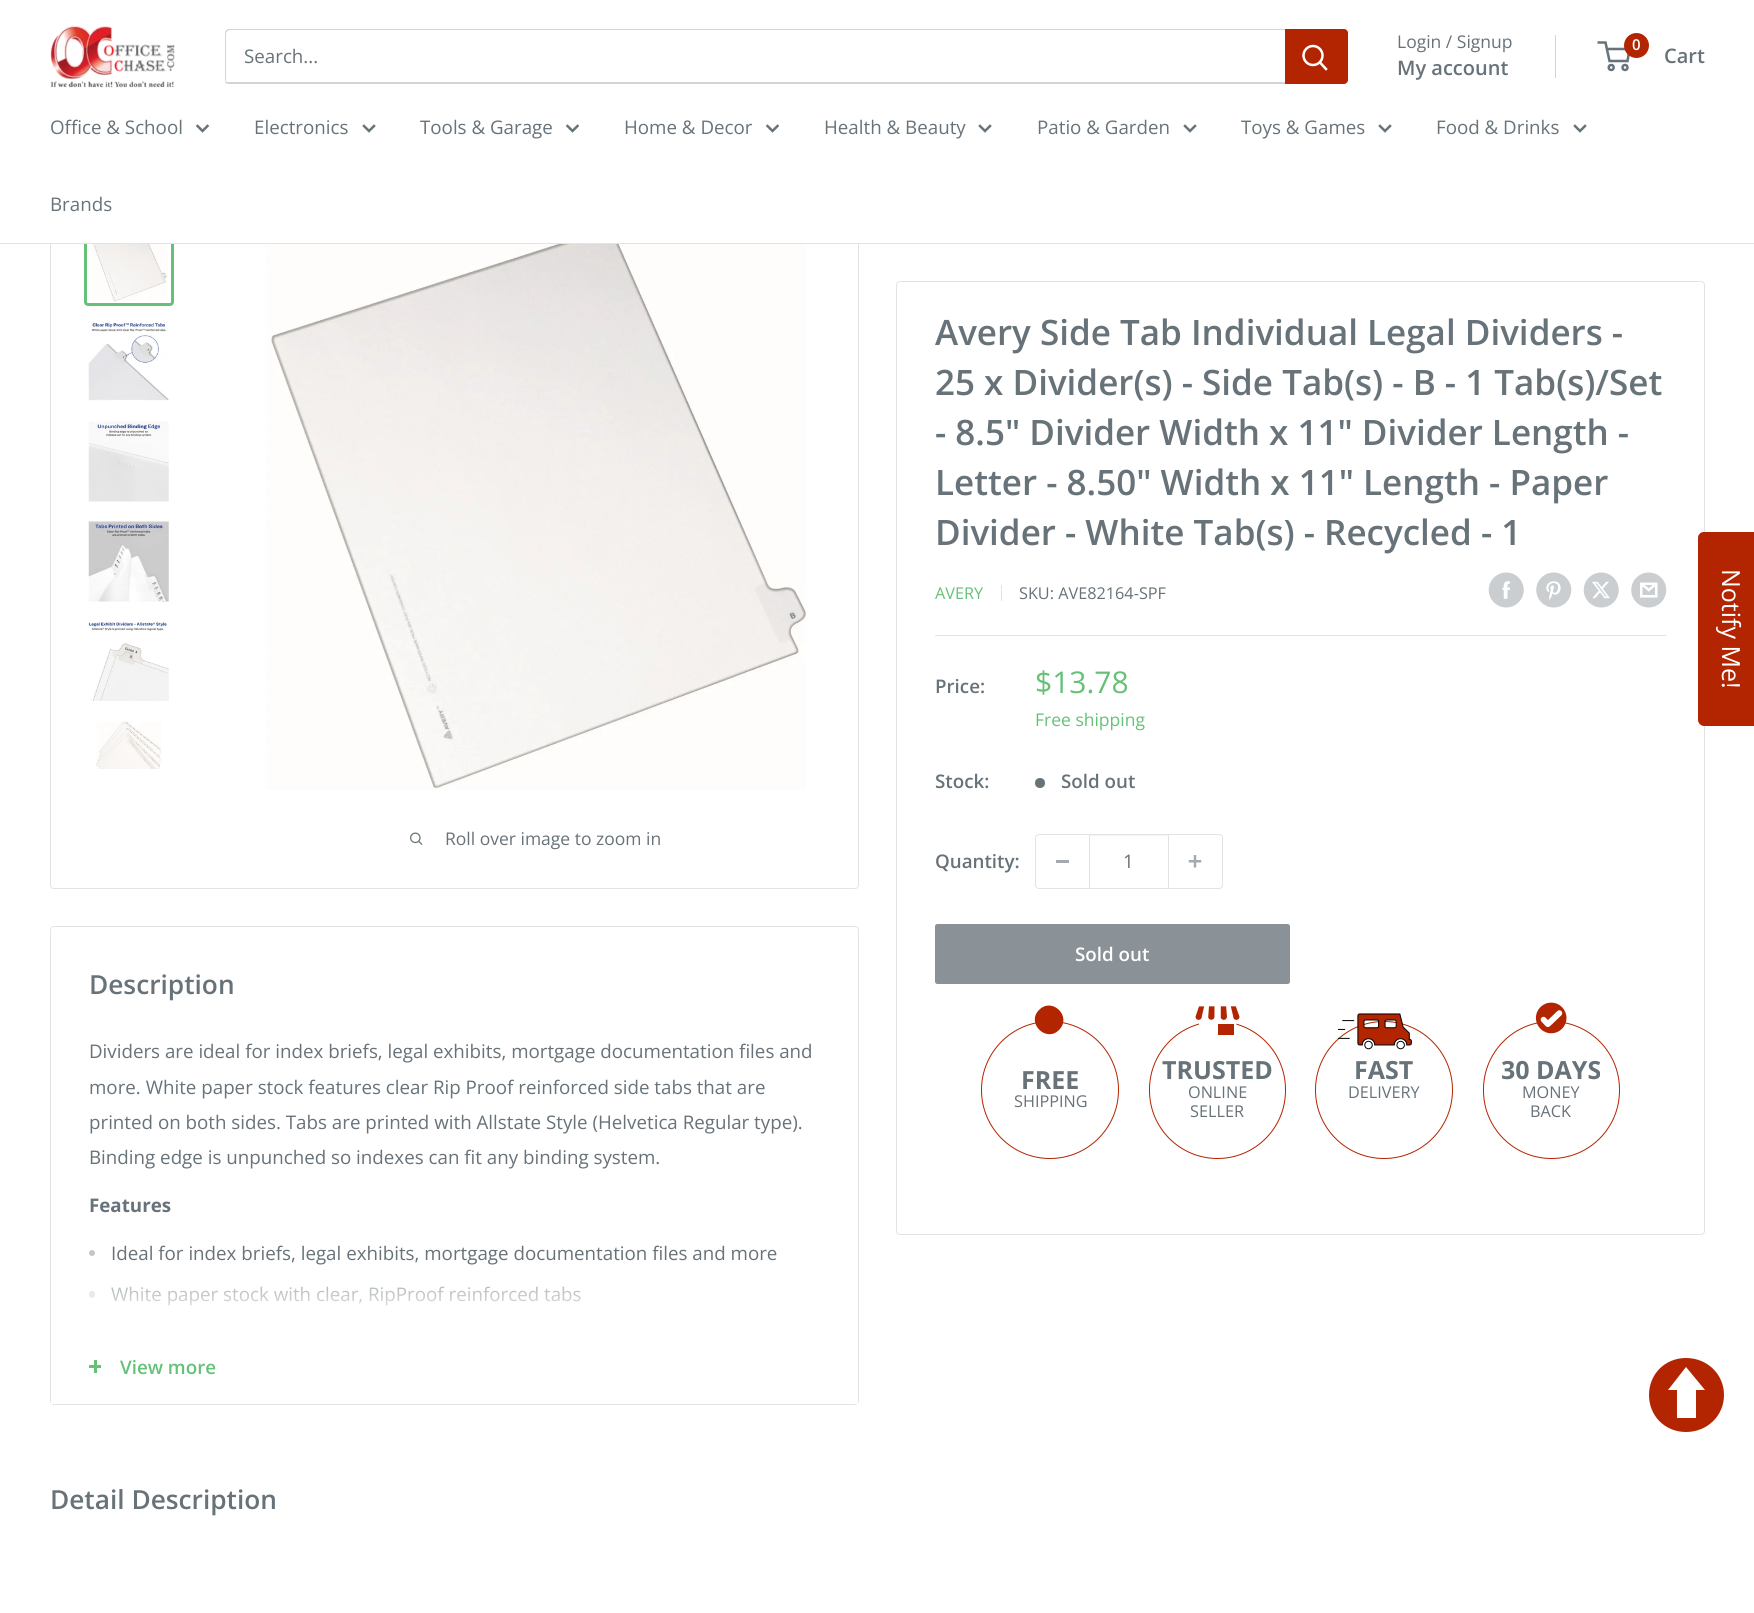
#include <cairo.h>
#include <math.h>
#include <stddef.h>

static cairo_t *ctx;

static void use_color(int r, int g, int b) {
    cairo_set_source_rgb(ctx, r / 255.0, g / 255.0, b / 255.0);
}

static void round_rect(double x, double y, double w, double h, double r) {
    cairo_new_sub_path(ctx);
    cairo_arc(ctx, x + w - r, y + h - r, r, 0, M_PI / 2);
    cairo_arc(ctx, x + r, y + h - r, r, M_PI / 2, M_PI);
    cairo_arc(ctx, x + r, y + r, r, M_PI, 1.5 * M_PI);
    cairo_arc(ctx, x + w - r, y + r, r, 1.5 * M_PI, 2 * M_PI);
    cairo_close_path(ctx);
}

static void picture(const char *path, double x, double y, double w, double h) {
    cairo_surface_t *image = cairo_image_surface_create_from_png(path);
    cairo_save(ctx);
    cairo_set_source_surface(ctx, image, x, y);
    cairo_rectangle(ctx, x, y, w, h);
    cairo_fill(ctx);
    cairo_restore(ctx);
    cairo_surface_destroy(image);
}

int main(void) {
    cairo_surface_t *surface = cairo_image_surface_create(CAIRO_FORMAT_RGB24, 1754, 1613);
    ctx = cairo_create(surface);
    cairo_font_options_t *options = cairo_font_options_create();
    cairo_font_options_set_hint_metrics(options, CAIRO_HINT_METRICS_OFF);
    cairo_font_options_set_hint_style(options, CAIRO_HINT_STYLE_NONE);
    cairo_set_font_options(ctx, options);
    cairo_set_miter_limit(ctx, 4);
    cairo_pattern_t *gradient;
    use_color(255, 255, 255);
    cairo_paint(ctx);
    picture("img1.png", 50, 25, 125, 63);
    use_color(209, 213, 215);
    cairo_new_path(ctx);
    cairo_move_to(ctx, 225, 82);
    cairo_curve_to(ctx, 226, 83, 227, 84, 229, 84);
    cairo_line_to(ctx, 1344, 84);
    cairo_curve_to(ctx, 1346, 84, 1348, 82, 1348, 80);
    cairo_line_to(ctx, 1348, 33);
    cairo_curve_to(ctx, 1348, 31, 1347, 30, 1346, 29);
    cairo_line_to(ctx, 1346, 79);
    cairo_curve_to(ctx, 1346, 81, 1345, 82, 1342, 82);
    cairo_line_to(ctx, 228, 82);
    cairo_close_path(ctx);
    cairo_fill(ctx);
    cairo_set_source_rgba(ctx, 0.404, 0.447, 0.475, 0.3);
    cairo_new_path(ctx);
    cairo_move_to(ctx, 230, 30);
    cairo_line_to(ctx, 1345, 30);
    cairo_line_to(ctx, 1347, 31);
    cairo_curve_to(ctx, 1347, 30, 1345, 29, 1344, 29);
    cairo_line_to(ctx, 229, 29);
    cairo_curve_to(ctx, 227, 29, 225, 31, 225, 33);
    cairo_line_to(ctx, 225, 80);
    cairo_curve_to(ctx, 225, 81, 226, 83, 227, 83);
    cairo_line_to(ctx, 226, 81);
    cairo_line_to(ctx, 226, 34);
    cairo_curve_to(ctx, 226, 32, 228, 30, 230, 30);
    cairo_close_path(ctx);
    cairo_fill(ctx);
    cairo_select_font_face(ctx, "Open Sans", CAIRO_FONT_SLANT_NORMAL, CAIRO_FONT_WEIGHT_NORMAL);
    cairo_set_font_size(ctx, 18.75);
    use_color(103, 114, 121);
    cairo_move_to(ctx, 244, 63);
    cairo_show_text(ctx, "Search...");
    use_color(179, 36, 0);
    cairo_new_path(ctx);
    cairo_move_to(ctx, 1285, 29);
    cairo_line_to(ctx, 1344, 29);
    cairo_curve_to(ctx, 1346, 29, 1348, 31, 1348, 33);
    cairo_line_to(ctx, 1348, 80);
    cairo_curve_to(ctx, 1348, 82, 1346, 84, 1344, 84);
    cairo_line_to(ctx, 1285, 84);
    cairo_close_path(ctx);
    cairo_fill(ctx);
    cairo_new_path(ctx);
    cairo_move_to(ctx, 1326, 69);
    cairo_line_to(ctx, 1320, 62.5);
    use_color(255, 255, 255);
    cairo_set_line_width(ctx, 2.5);
    cairo_set_line_cap(ctx, CAIRO_LINE_CAP_SQUARE);
    cairo_stroke(ctx);
    cairo_arc(ctx, 1313, 55.5, 9.5, 0, 2 * M_PI);
    cairo_set_line_cap(ctx, CAIRO_LINE_CAP_BUTT);
    cairo_stroke(ctx);
    cairo_set_font_size(ctx, 17.5);
    use_color(103, 114, 121);
    cairo_move_to(ctx, 1397, 48);
    cairo_show_text(ctx, "Login / Signup");
    use_color(209, 213, 215);
    cairo_rectangle(ctx, 1555, 35, 1, 43);
    cairo_fill(ctx);
    cairo_select_font_face(ctx, "Open Sans SemiBold", CAIRO_FONT_SLANT_NORMAL, CAIRO_FONT_WEIGHT_NORMAL);
    cairo_set_font_size(ctx, 20);
    use_color(103, 114, 121);
    cairo_move_to(ctx, 1397, 75);
    cairo_show_text(ctx, "My account");
    cairo_new_path(ctx);
    cairo_arc(ctx, 1611.2, 67.5, 2.5, 0, 2 * M_PI);
    cairo_stroke(ctx);
    cairo_arc(ctx, 1625, 67.5, 2.5, 0, 2 * M_PI);
    cairo_stroke(ctx);
    cairo_new_path(ctx);
    cairo_move_to(ctx, 1606.5, 49);
    cairo_line_to(ctx, 1629.5, 49);
    cairo_line_to(ctx, 1627.5, 61);
    cairo_line_to(ctx, 1609.5, 61);
    cairo_line_to(ctx, 1605.5, 42.5);
    cairo_line_to(ctx, 1597.5, 42.5);
    cairo_stroke(ctx);
    use_color(179, 36, 0);
    cairo_arc(ctx, 1636.5, 45.5, 12.5, 0, 2 * M_PI);
    cairo_fill(ctx);
    cairo_set_font_size(ctx, 15);
    use_color(255, 255, 255);
    cairo_move_to(ctx, 1632, 50);
    cairo_show_text(ctx, "0");
    cairo_set_font_size(ctx, 20);
    use_color(103, 114, 121);
    cairo_move_to(ctx, 1664, 63);
    cairo_show_text(ctx, "Cart");
    round_rect(50.5, 183.5, 808, 705, 3.5);
    use_color(225, 227, 228);
    cairo_set_line_width(ctx, 1);
    cairo_stroke(ctx);
    round_rect(85.5, 217.5, 87, 87, 2.5);
    use_color(101, 193, 120);
    cairo_set_line_width(ctx, 3);
    cairo_stroke(ctx);
    use_color(255, 255, 255);
    cairo_rectangle(ctx, 50, 183, 809, 60);
    cairo_fill(ctx);
    use_color(225, 227, 228);
    cairo_rectangle(ctx, 0, 243, 1754, 1);
    cairo_fill(ctx);
    cairo_select_font_face(ctx, "Open Sans", CAIRO_FONT_SLANT_NORMAL, CAIRO_FONT_WEIGHT_NORMAL);
    cairo_set_font_size(ctx, 18.75);
    use_color(103, 114, 121);
    cairo_move_to(ctx, 50, 134);
    cairo_show_text(ctx, "Office & School");
    cairo_new_path(ctx);
    cairo_move_to(ctx, 207.5, 126);
    cairo_line_to(ctx, 202.5, 131);
    cairo_line_to(ctx, 197.5, 126);
    cairo_set_line_width(ctx, 2.5);
    cairo_set_line_cap(ctx, CAIRO_LINE_CAP_SQUARE);
    cairo_stroke(ctx);
    cairo_move_to(ctx, 254, 134);
    cairo_show_text(ctx, "Electronics");
    cairo_new_path(ctx);
    cairo_move_to(ctx, 374, 126);
    cairo_line_to(ctx, 369, 131);
    cairo_line_to(ctx, 364, 126);
    cairo_stroke(ctx);
    cairo_move_to(ctx, 420, 134);
    cairo_show_text(ctx, "Tools & Garage");
    cairo_new_path(ctx);
    cairo_move_to(ctx, 577.5, 126);
    cairo_line_to(ctx, 572.5, 131);
    cairo_line_to(ctx, 567.5, 126);
    cairo_stroke(ctx);
    cairo_move_to(ctx, 624, 134);
    cairo_show_text(ctx, "Home & Decor");
    cairo_new_path(ctx);
    cairo_move_to(ctx, 777.5, 126);
    cairo_line_to(ctx, 772.5, 131);
    cairo_line_to(ctx, 767.5, 126);
    cairo_stroke(ctx);
    cairo_move_to(ctx, 824, 134);
    cairo_show_text(ctx, "Health & Beauty");
    cairo_new_path(ctx);
    cairo_move_to(ctx, 990, 126);
    cairo_line_to(ctx, 985, 131);
    cairo_line_to(ctx, 980, 126);
    cairo_stroke(ctx);
    cairo_move_to(ctx, 1037, 134);
    cairo_show_text(ctx, "Patio & Garden");
    cairo_new_path(ctx);
    cairo_move_to(ctx, 1195, 126);
    cairo_line_to(ctx, 1190, 131);
    cairo_line_to(ctx, 1185, 126);
    cairo_stroke(ctx);
    cairo_move_to(ctx, 1241, 134);
    cairo_show_text(ctx, "Toys & Games");
    cairo_new_path(ctx);
    cairo_move_to(ctx, 1390, 126);
    cairo_line_to(ctx, 1385, 131);
    cairo_line_to(ctx, 1380, 126);
    cairo_stroke(ctx);
    cairo_move_to(ctx, 1436, 134);
    cairo_show_text(ctx, "Food & Drinks");
    cairo_new_path(ctx);
    cairo_move_to(ctx, 1585, 126);
    cairo_line_to(ctx, 1580, 131);
    cairo_line_to(ctx, 1575, 126);
    cairo_stroke(ctx);
    cairo_move_to(ctx, 50, 211);
    cairo_show_text(ctx, "Brands");
    picture("img2.png", 91, 244, 76, 58);
    picture("img3.png", 88, 321, 81, 80);
    picture("img4.png", 88, 421, 81, 81);
    picture("img5.png", 88, 521, 81, 81);
    picture("img6.png", 88, 621, 81, 80);
    picture("img7.png", 96, 721, 66, 48);
    picture("img8.png", 265, 244, 543, 546);
    picture("img9.png", 410, 832, 13, 13);
    cairo_set_font_size(ctx, 17.5);
    cairo_move_to(ctx, 445, 845);
    cairo_show_text(ctx, "Roll over image to zoom in");
    round_rect(896.5, 281.5, 808, 953, 3.5);
    use_color(225, 227, 228);
    cairo_set_line_width(ctx, 1);
    cairo_set_line_cap(ctx, CAIRO_LINE_CAP_BUTT);
    cairo_stroke(ctx);
    cairo_select_font_face(ctx, "Open Sans SemiBold", CAIRO_FONT_SLANT_NORMAL, CAIRO_FONT_WEIGHT_NORMAL);
    cairo_set_font_size(ctx, 35);
    use_color(103, 114, 121);
    cairo_move_to(ctx, 935, 345);
    cairo_show_text(ctx, "Avery Side Tab Individual Legal Dividers -");
    cairo_move_to(ctx, 935, 395);
    cairo_show_text(ctx, "25 x Divider(s) - Side Tab(s) - B - 1 Tab(s)/Set");
    cairo_move_to(ctx, 935, 445);
    cairo_show_text(ctx, "- 8.5\" Divider Width x 11\" Divider Length -");
    cairo_move_to(ctx, 935, 495);
    cairo_show_text(ctx, "Letter - 8.50\" Width x 11\" Length - Paper");
    cairo_move_to(ctx, 935, 545);
    cairo_show_text(ctx, "Divider - White Tab(s) - Recycled - 1");
    cairo_select_font_face(ctx, "Open Sans", CAIRO_FONT_SLANT_NORMAL, CAIRO_FONT_WEIGHT_NORMAL);
    cairo_set_font_size(ctx, 16.25);
    use_color(101, 193, 120);
    cairo_move_to(ctx, 935, 599);
    cairo_show_text(ctx, "AVERY");
    use_color(225, 227, 228);
    cairo_rectangle(ctx, 1001, 585, 1, 16);
    cairo_fill(ctx);
    use_color(103, 114, 121);
    cairo_move_to(ctx, 1019, 599);
    cairo_show_text(ctx, "SKU: AVE82164-SPF");
    picture("img10.png", 1488, 572, 36, 36);
    picture("img11.png", 1536, 572, 36, 36);
    picture("img12.png", 1583, 572, 36, 36);
    picture("img13.png", 1631, 572, 36, 36);
    use_color(225, 227, 228);
    cairo_rectangle(ctx, 935, 635, 731, 1);
    cairo_fill(ctx);
    cairo_select_font_face(ctx, "Open Sans SemiBold", CAIRO_FONT_SLANT_NORMAL, CAIRO_FONT_WEIGHT_NORMAL);
    cairo_set_font_size(ctx, 18.75);
    use_color(103, 114, 121);
    cairo_move_to(ctx, 935, 693);
    cairo_show_text(ctx, "Price:");
    cairo_select_font_face(ctx, "Open Sans", CAIRO_FONT_SLANT_NORMAL, CAIRO_FONT_WEIGHT_NORMAL);
    cairo_set_font_size(ctx, 30);
    use_color(101, 193, 120);
    cairo_move_to(ctx, 1035, 693);
    cairo_show_text(ctx, "$13.78");
    cairo_set_font_size(ctx, 17.5);
    cairo_move_to(ctx, 1035, 726);
    cairo_show_text(ctx, "Free shipping");
    cairo_select_font_face(ctx, "Open Sans SemiBold", CAIRO_FONT_SLANT_NORMAL, CAIRO_FONT_WEIGHT_NORMAL);
    cairo_set_font_size(ctx, 18.75);
    use_color(103, 114, 121);
    cairo_move_to(ctx, 935, 788);
    cairo_show_text(ctx, "Stock:");
    cairo_new_path(ctx);
    cairo_arc(ctx, 1040, 783, 5, 0, 2 * M_PI);
    cairo_fill(ctx);
    cairo_move_to(ctx, 1061, 788);
    cairo_show_text(ctx, "Sold out");
    cairo_move_to(ctx, 935, 868);
    cairo_show_text(ctx, "Quantity:");
    round_rect(1035.5, 834.5, 187, 54, 3.5);
    use_color(225, 227, 228);
    cairo_stroke(ctx);
    use_color(164, 170, 175);
    cairo_rectangle(ctx, 1056, 860, 13, 3);
    cairo_fill(ctx);
    use_color(243, 244, 244);
    cairo_rectangle(ctx, 1090, 835, 78, 1);
    cairo_fill(ctx);
    use_color(225, 227, 228);
    cairo_rectangle(ctx, 1168, 835, 1, 53);
    cairo_fill(ctx);
    cairo_rectangle(ctx, 1089, 835, 1, 53);
    cairo_fill(ctx);
    cairo_select_font_face(ctx, "Open Sans", CAIRO_FONT_SLANT_NORMAL, CAIRO_FONT_WEIGHT_NORMAL);
    use_color(103, 114, 121);
    cairo_move_to(ctx, 1123, 868);
    cairo_show_text(ctx, "1");
    picture("img14.png", 1188, 855, 14, 13);
    use_color(138, 146, 151);
    round_rect(935.5, 924.5, 354, 59, 2);
    cairo_fill_preserve(ctx);
    cairo_stroke(ctx);
    cairo_select_font_face(ctx, "Open Sans SemiBold", CAIRO_FONT_SLANT_NORMAL, CAIRO_FONT_WEIGHT_NORMAL);
    use_color(255, 255, 255);
    cairo_move_to(ctx, 1075, 961);
    cairo_show_text(ctx, "Sold out");
    cairo_new_path(ctx);
    cairo_arc(ctx, 1050, 1090, 68.5, 0, 2 * M_PI);
    use_color(179, 36, 0);
    cairo_stroke(ctx);
    cairo_new_path(ctx);
    cairo_move_to(ctx, 1059, 1030);
    cairo_curve_to(ctx, 1046, 1043, 1026, 1023, 1039, 1010);
    cairo_curve_to(ctx, 1052, 996.5, 1072.5, 1016.5, 1059, 1030);
    cairo_close_path(ctx);
    cairo_fill(ctx);
    cairo_select_font_face(ctx, "Open Sans", CAIRO_FONT_SLANT_NORMAL, CAIRO_FONT_WEIGHT_BOLD);
    cairo_set_font_size(ctx, 25);
    use_color(103, 114, 121);
    cairo_move_to(ctx, 1021, 1089);
    cairo_show_text(ctx, "FREE");
    cairo_select_font_face(ctx, "Open Sans", CAIRO_FONT_SLANT_NORMAL, CAIRO_FONT_WEIGHT_NORMAL);
    cairo_set_font_size(ctx, 16.25);
    cairo_move_to(ctx, 1014, 1107);
    cairo_show_text(ctx, "SHIPPING");
    round_rect(1149.5, 1021.5, 136, 137, 68);
    use_color(179, 36, 0);
    cairo_stroke(ctx);
    picture("img15.png", 1195, 1006, 45, 29);
    cairo_select_font_face(ctx, "Open Sans", CAIRO_FONT_SLANT_NORMAL, CAIRO_FONT_WEIGHT_BOLD);
    cairo_set_font_size(ctx, 25);
    use_color(103, 114, 121);
    cairo_move_to(ctx, 1162, 1079);
    cairo_show_text(ctx, "TRUSTED");
    cairo_select_font_face(ctx, "Open Sans", CAIRO_FONT_SLANT_NORMAL, CAIRO_FONT_WEIGHT_NORMAL);
    cairo_set_font_size(ctx, 16.25);
    cairo_move_to(ctx, 1188, 1098);
    cairo_show_text(ctx, "ONLINE");
    cairo_move_to(ctx, 1190, 1117);
    cairo_show_text(ctx, "SELLER");
    cairo_new_path(ctx);
    cairo_arc(ctx, 1384, 1090, 68.5, 0, 2 * M_PI);
    use_color(179, 36, 0);
    cairo_stroke(ctx);
    picture("img16.png", 1338, 1013, 74, 37);
    cairo_select_font_face(ctx, "Open Sans", CAIRO_FONT_SLANT_NORMAL, CAIRO_FONT_WEIGHT_BOLD);
    cairo_set_font_size(ctx, 25);
    use_color(103, 114, 121);
    cairo_move_to(ctx, 1354, 1079);
    cairo_show_text(ctx, "FAST");
    cairo_select_font_face(ctx, "Open Sans", CAIRO_FONT_SLANT_NORMAL, CAIRO_FONT_WEIGHT_NORMAL);
    cairo_set_font_size(ctx, 16.25);
    cairo_move_to(ctx, 1348, 1098);
    cairo_show_text(ctx, "DELIVERY");
    round_rect(1483.5, 1021.5, 136, 137, 68);
    use_color(179, 36, 0);
    cairo_stroke(ctx);
    picture("img17.png", 1535, 1002, 32, 32);
    cairo_select_font_face(ctx, "Open Sans", CAIRO_FONT_SLANT_NORMAL, CAIRO_FONT_WEIGHT_BOLD);
    cairo_set_font_size(ctx, 25);
    use_color(103, 114, 121);
    cairo_move_to(ctx, 1501, 1079);
    cairo_show_text(ctx, "30 DAYS");
    cairo_select_font_face(ctx, "Open Sans", CAIRO_FONT_SLANT_NORMAL, CAIRO_FONT_WEIGHT_NORMAL);
    cairo_set_font_size(ctx, 16.25);
    cairo_move_to(ctx, 1522, 1098);
    cairo_show_text(ctx, "MONEY");
    cairo_move_to(ctx, 1530, 1117);
    cairo_show_text(ctx, "BACK");
    round_rect(50.5, 926.5, 808, 478, 3.5);
    use_color(225, 227, 228);
    cairo_stroke(ctx);
    cairo_select_font_face(ctx, "Open Sans SemiBold", CAIRO_FONT_SLANT_NORMAL, CAIRO_FONT_WEIGHT_NORMAL);
    cairo_set_font_size(ctx, 26.25);
    use_color(103, 114, 121);
    cairo_move_to(ctx, 89, 994);
    cairo_show_text(ctx, "Description");
    cairo_select_font_face(ctx, "Open Sans", CAIRO_FONT_SLANT_NORMAL, CAIRO_FONT_WEIGHT_NORMAL);
    cairo_set_font_size(ctx, 18.75);
    cairo_move_to(ctx, 89, 1058);
    cairo_show_text(ctx, "Dividers are ideal for index briefs, legal exhibits, mortgage documentation files and");
    cairo_move_to(ctx, 89, 1094);
    cairo_show_text(ctx, "more. White paper stock features clear Rip Proof reinforced side tabs that are");
    cairo_move_to(ctx, 89, 1129);
    cairo_show_text(ctx, "printed on both sides. Tabs are printed with Allstate Style (Helvetica Regular type).");
    cairo_move_to(ctx, 89, 1164);
    cairo_show_text(ctx, "Binding edge is unpunched so indexes can fit any binding system.");
    cairo_select_font_face(ctx, "Open Sans", CAIRO_FONT_SLANT_NORMAL, CAIRO_FONT_WEIGHT_BOLD);
    cairo_move_to(ctx, 89, 1212);
    cairo_show_text(ctx, "Features");
    use_color(194, 199, 201);
    cairo_new_path(ctx);
    cairo_arc(ctx, 92, 1253, 3, 0, 2 * M_PI);
    cairo_fill(ctx);
    cairo_select_font_face(ctx, "Open Sans", CAIRO_FONT_SLANT_NORMAL, CAIRO_FONT_WEIGHT_NORMAL);
    use_color(103, 114, 121);
    cairo_move_to(ctx, 111, 1260);
    cairo_show_text(ctx, "Ideal for index briefs, legal exhibits, mortgage documentation files and more");
    use_color(194, 199, 201);
    round_rect(89, 1291, 6, 7, 3);
    cairo_fill(ctx);
    use_color(103, 114, 121);
    cairo_move_to(ctx, 111, 1301);
    cairo_show_text(ctx, "White paper stock with clear, RipProof reinforced tabs");
    use_color(255, 255, 255);
    cairo_rectangle(ctx, 51, 1401, 807, 3);
    cairo_fill(ctx);
    gradient = cairo_pattern_create_linear(454, 1266, 454, 1329);
    cairo_pattern_add_color_stop_rgba(gradient, 0, 1, 1, 1, 0);
    cairo_pattern_add_color_stop_rgba(gradient, 0.15, 1, 1, 1, 0.4);
    cairo_pattern_add_color_stop_rgba(gradient, 1, 1, 1, 1, 1);
    cairo_set_source(ctx, gradient);
    cairo_pattern_destroy(gradient);
    cairo_rectangle(ctx, 89, 1286, 492, 20);
    cairo_fill(ctx);
    use_color(101, 193, 120);
    cairo_rectangle(ctx, 94, 1360, 3, 13);
    cairo_fill(ctx);
    cairo_rectangle(ctx, 89, 1365, 12, 3);
    cairo_fill(ctx);
    cairo_select_font_face(ctx, "Open Sans SemiBold", CAIRO_FONT_SLANT_NORMAL, CAIRO_FONT_WEIGHT_NORMAL);
    cairo_move_to(ctx, 120, 1374);
    cairo_show_text(ctx, "View more");
    cairo_set_font_size(ctx, 26.25);
    use_color(103, 114, 121);
    cairo_move_to(ctx, 50, 1509);
    cairo_show_text(ctx, "Detail Description");
    use_color(179, 36, 0);
    cairo_new_path(ctx);
    cairo_move_to(ctx, 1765, 532);
    cairo_line_to(ctx, 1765, 726);
    cairo_line_to(ctx, 1704, 726);
    cairo_curve_to(ctx, 1701, 726, 1698, 723, 1698, 720);
    cairo_line_to(ctx, 1698, 538);
    cairo_curve_to(ctx, 1698, 534, 1701, 532, 1704, 532);
    cairo_close_path(ctx);
    cairo_fill(ctx);
    cairo_select_font_face(ctx, "Open Sans", CAIRO_FONT_SLANT_NORMAL, CAIRO_FONT_WEIGHT_NORMAL);
    cairo_set_font_size(ctx, 25);
    use_color(255, 255, 255);
    cairo_save(ctx);
    cairo_translate(ctx, 1722, 569);
    cairo_rotate(ctx, 90 * M_PI / 180);
    cairo_move_to(ctx, 0, 0);
    cairo_show_text(ctx, "Notify Me!");
    cairo_restore(ctx);
    use_color(179, 36, 0);
    cairo_set_fill_rule(ctx, CAIRO_FILL_RULE_EVEN_ODD);
    cairo_new_path(ctx);
    cairo_move_to(ctx, 1677, 1390);
    cairo_line_to(ctx, 1677, 1418);
    cairo_line_to(ctx, 1696, 1418);
    cairo_line_to(ctx, 1696, 1390);
    cairo_line_to(ctx, 1705, 1390);
    cairo_line_to(ctx, 1686, 1367);
    cairo_line_to(ctx, 1668, 1390);
    cairo_close_path(ctx);
    cairo_move_to(ctx, 1686, 1432);
    cairo_curve_to(ctx, 1665, 1432, 1649, 1416, 1649, 1395);
    cairo_curve_to(ctx, 1649, 1374, 1665, 1358, 1686, 1358);
    cairo_curve_to(ctx, 1707, 1358, 1724, 1374, 1724, 1395);
    cairo_curve_to(ctx, 1724, 1416, 1707, 1432, 1686, 1432);
    cairo_close_path(ctx);
    cairo_fill(ctx);
    cairo_surface_write_to_png(surface, "result.png");
    cairo_font_options_destroy(options);
    cairo_destroy(ctx);
    cairo_surface_destroy(surface);
    return 0;
}
